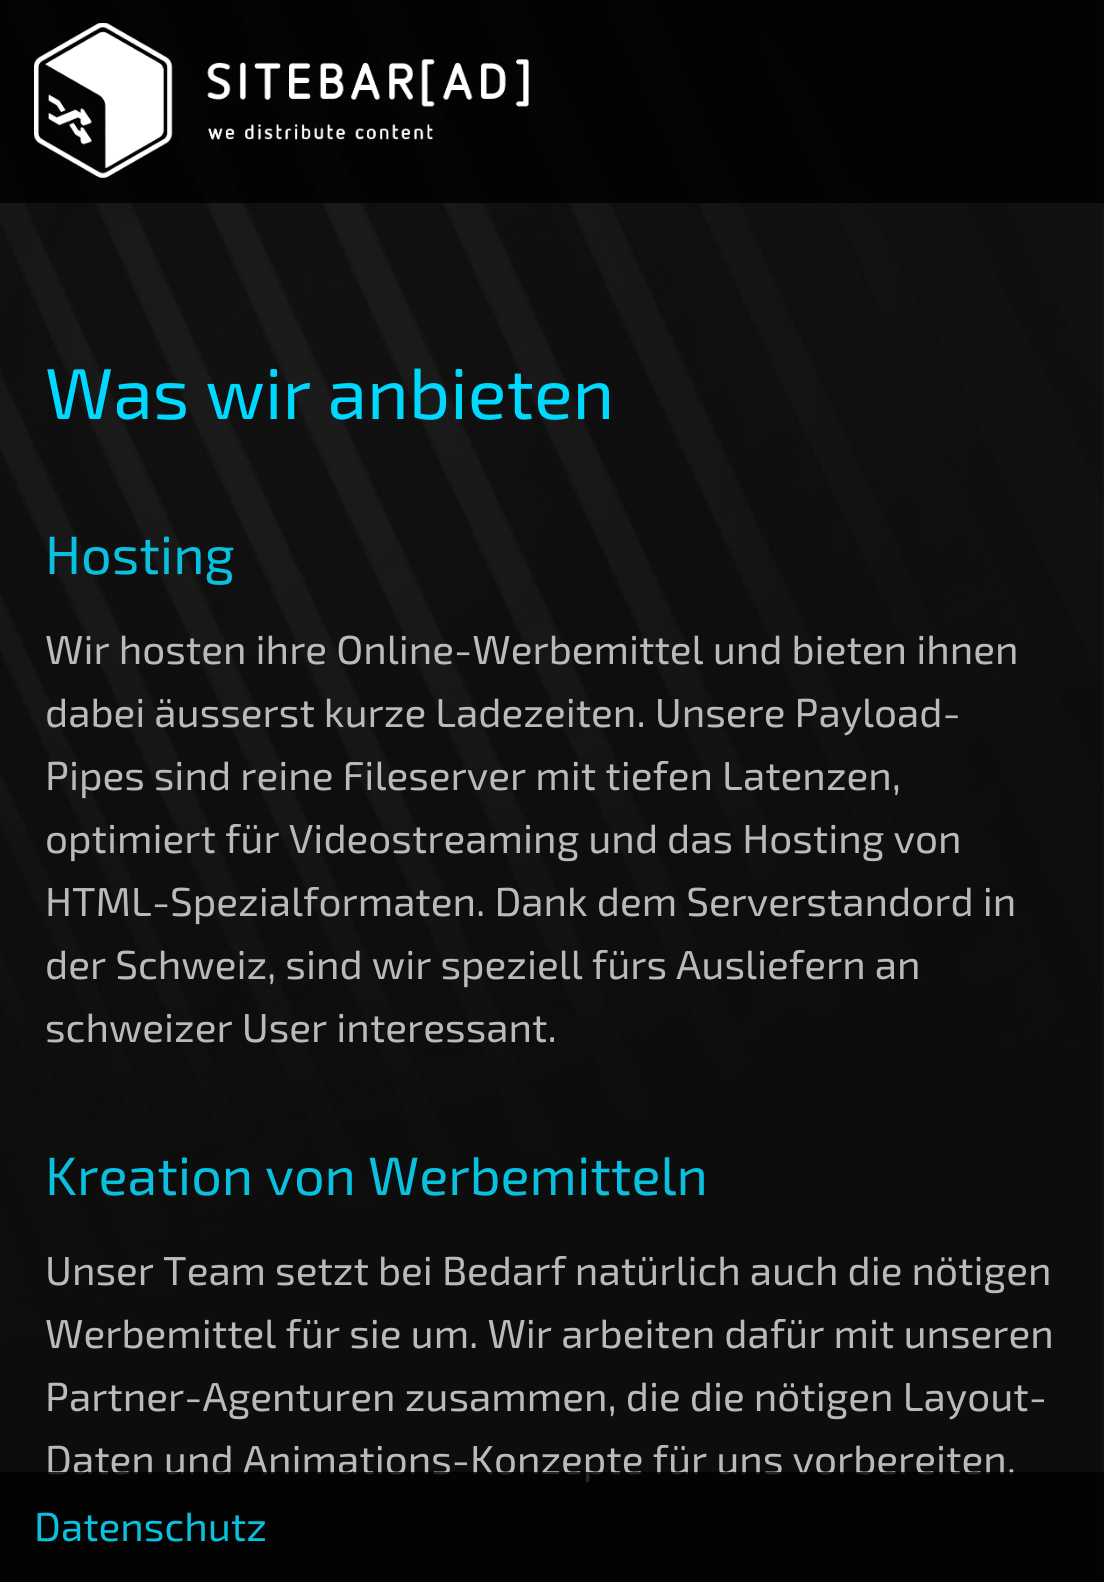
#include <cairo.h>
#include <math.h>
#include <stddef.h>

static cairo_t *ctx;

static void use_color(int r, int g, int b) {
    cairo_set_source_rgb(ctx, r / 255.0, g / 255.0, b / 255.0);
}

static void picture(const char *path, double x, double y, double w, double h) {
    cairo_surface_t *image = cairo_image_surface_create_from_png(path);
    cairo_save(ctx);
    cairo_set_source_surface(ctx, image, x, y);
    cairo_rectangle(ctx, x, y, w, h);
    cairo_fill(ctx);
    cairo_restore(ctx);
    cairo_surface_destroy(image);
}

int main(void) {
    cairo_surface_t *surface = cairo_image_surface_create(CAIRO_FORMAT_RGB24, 1104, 1582);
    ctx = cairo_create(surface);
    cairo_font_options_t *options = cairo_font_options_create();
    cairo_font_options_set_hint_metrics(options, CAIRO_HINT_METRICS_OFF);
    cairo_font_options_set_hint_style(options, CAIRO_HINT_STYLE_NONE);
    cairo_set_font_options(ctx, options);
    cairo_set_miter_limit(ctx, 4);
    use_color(255, 255, 255);
    cairo_paint(ctx);
    picture("img1.png", 0, 0, 1104, 1582);
    cairo_set_source_rgba(ctx, 0, 0, 0, 0.8);
    cairo_rectangle(ctx, 0, 0, 1104, 203);
    cairo_fill(ctx);
    picture("img2.png", 34, 23, 495, 155);
    cairo_select_font_face(ctx, "Exo 2", CAIRO_FONT_SLANT_NORMAL, CAIRO_FONT_WEIGHT_NORMAL);
    cairo_set_font_size(ctx, 72);
    use_color(0, 217, 255);
    cairo_move_to(ctx, 45, 419);
    cairo_show_text(ctx, "Was wir anbieten");
    cairo_set_font_size(ctx, 54);
    use_color(9, 193, 222);
    cairo_move_to(ctx, 45, 574);
    cairo_show_text(ctx, "Hosting");
    cairo_set_font_size(ctx, 40.5);
    use_color(186, 186, 186);
    cairo_move_to(ctx, 45, 664);
    cairo_show_text(ctx, "Wir hosten ihre Online-Werbemittel und bieten ihnen");
    cairo_move_to(ctx, 45, 727);
    cairo_show_text(ctx, "dabei äusserst kurze Ladezeiten. Unsere Payload-");
    cairo_move_to(ctx, 45, 790);
    cairo_show_text(ctx, "Pipes sind reine Fileserver mit tiefen Latenzen,");
    cairo_move_to(ctx, 45, 853);
    cairo_show_text(ctx, "optimiert für Videostreaming und das Hosting von");
    cairo_move_to(ctx, 45, 916);
    cairo_show_text(ctx, "HTML-Spezialformaten. Dank dem Serverstandord in");
    cairo_move_to(ctx, 45, 979);
    cairo_show_text(ctx, "der Schweiz, sind wir speziell fürs Ausliefern an");
    cairo_move_to(ctx, 45, 1042);
    cairo_show_text(ctx, "schweizer User interessant.");
    cairo_set_font_size(ctx, 54);
    use_color(9, 193, 222);
    cairo_move_to(ctx, 45, 1195);
    cairo_show_text(ctx, "Kreation von Werbemitteln");
    cairo_set_font_size(ctx, 40.5);
    use_color(186, 186, 186);
    cairo_move_to(ctx, 45, 1285);
    cairo_show_text(ctx, "Unser Team setzt bei Bedarf natürlich auch die nötigen");
    cairo_move_to(ctx, 45, 1348);
    cairo_show_text(ctx, "Werbemittel für sie um. Wir arbeiten dafür mit unseren");
    cairo_move_to(ctx, 45, 1411);
    cairo_show_text(ctx, "Partner-Agenturen zusammen, die die nötigen Layout-");
    cairo_move_to(ctx, 45, 1474);
    cairo_show_text(ctx, "Daten und Animations-Konzepte für uns vorbereiten.");
    cairo_set_source_rgba(ctx, 0, 0, 0, 0.8);
    cairo_rectangle(ctx, 0, 1472, 1104, 110);
    cairo_fill(ctx);
    use_color(9, 193, 222);
    cairo_move_to(ctx, 34, 1541);
    cairo_show_text(ctx, "Datenschutz");
    cairo_surface_write_to_png(surface, "result.png");
    cairo_font_options_destroy(options);
    cairo_destroy(ctx);
    cairo_surface_destroy(surface);
    return 0;
}
